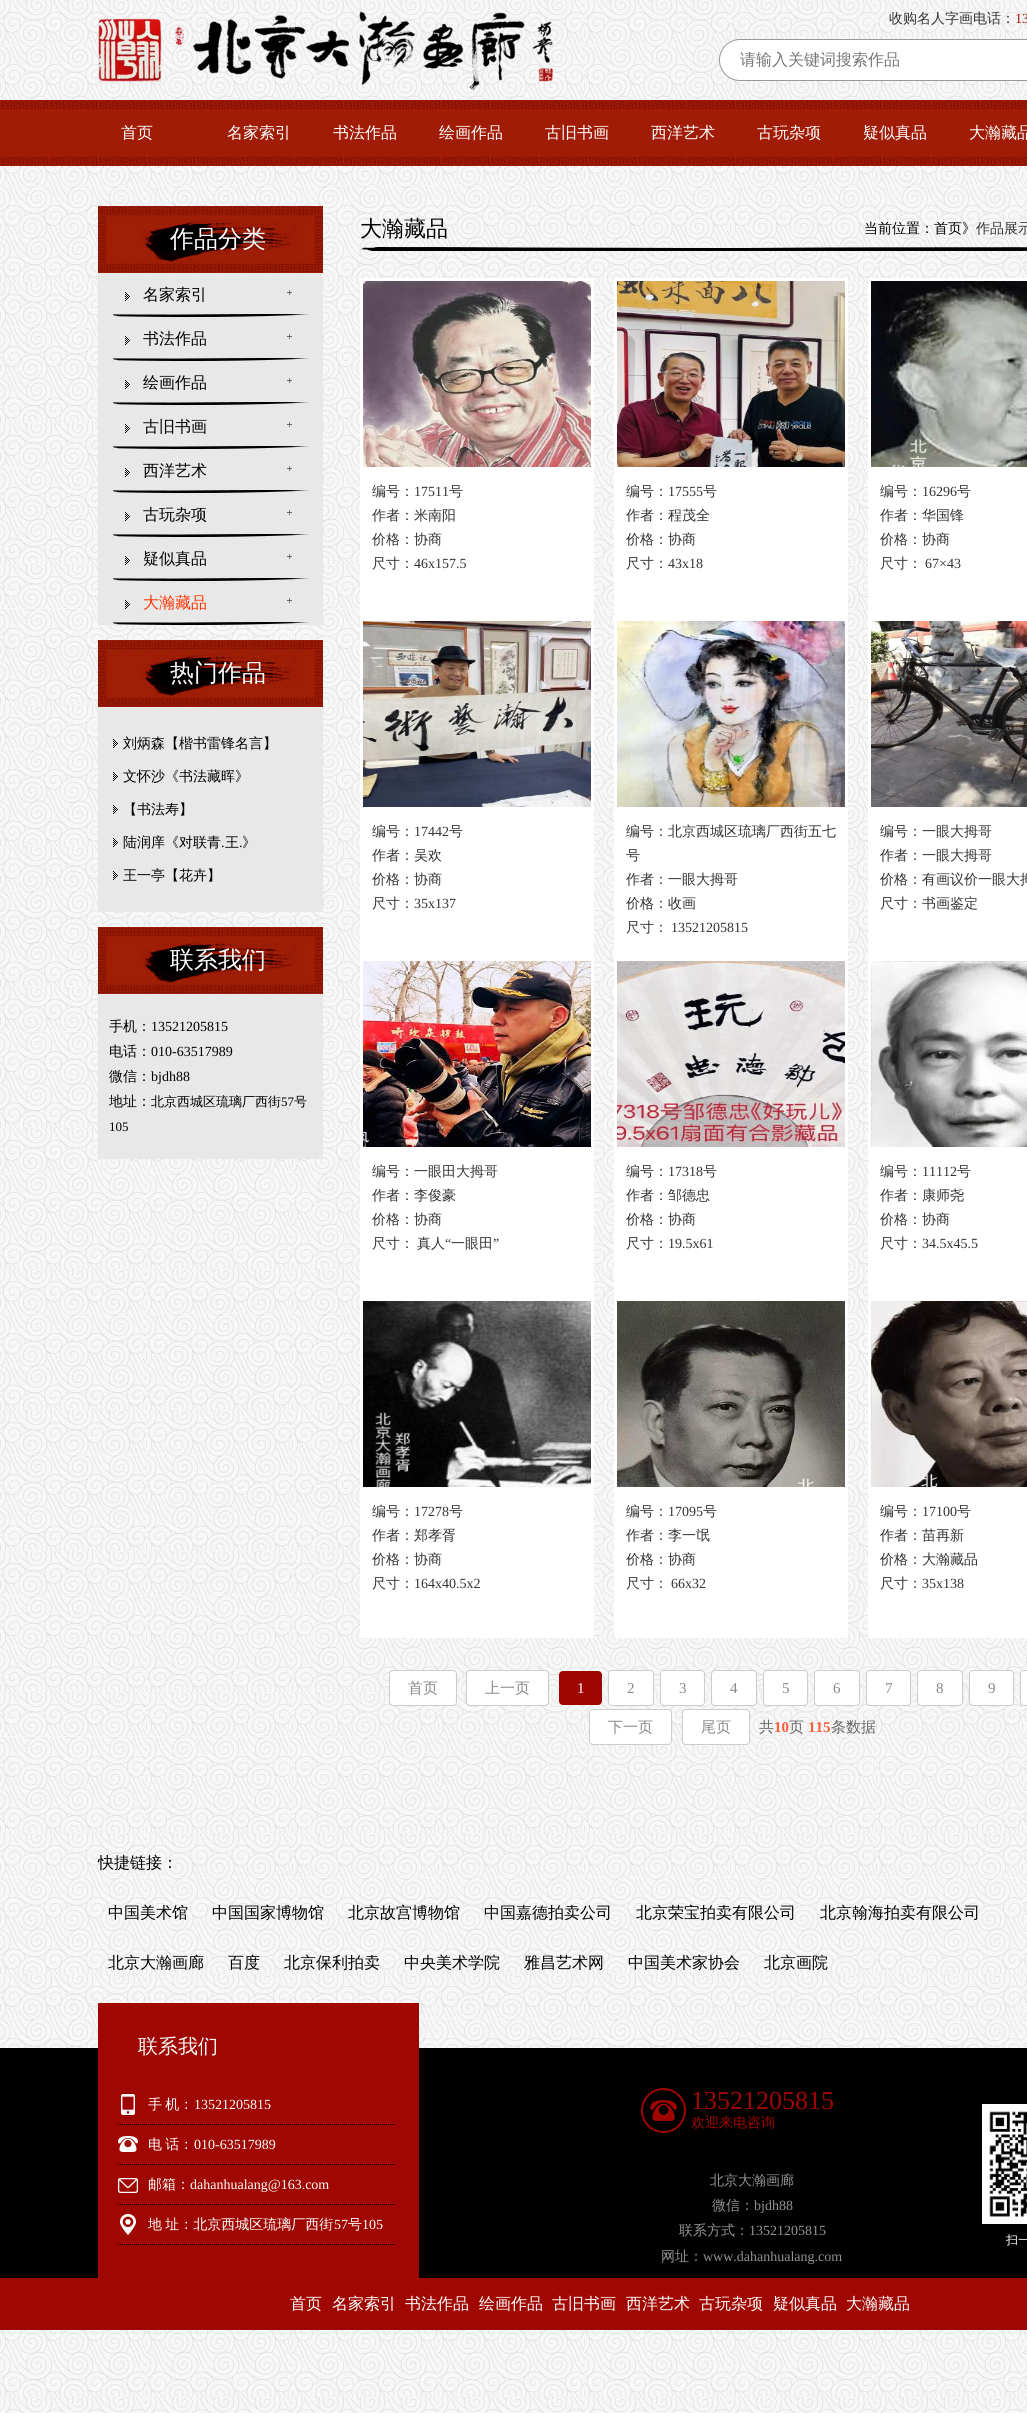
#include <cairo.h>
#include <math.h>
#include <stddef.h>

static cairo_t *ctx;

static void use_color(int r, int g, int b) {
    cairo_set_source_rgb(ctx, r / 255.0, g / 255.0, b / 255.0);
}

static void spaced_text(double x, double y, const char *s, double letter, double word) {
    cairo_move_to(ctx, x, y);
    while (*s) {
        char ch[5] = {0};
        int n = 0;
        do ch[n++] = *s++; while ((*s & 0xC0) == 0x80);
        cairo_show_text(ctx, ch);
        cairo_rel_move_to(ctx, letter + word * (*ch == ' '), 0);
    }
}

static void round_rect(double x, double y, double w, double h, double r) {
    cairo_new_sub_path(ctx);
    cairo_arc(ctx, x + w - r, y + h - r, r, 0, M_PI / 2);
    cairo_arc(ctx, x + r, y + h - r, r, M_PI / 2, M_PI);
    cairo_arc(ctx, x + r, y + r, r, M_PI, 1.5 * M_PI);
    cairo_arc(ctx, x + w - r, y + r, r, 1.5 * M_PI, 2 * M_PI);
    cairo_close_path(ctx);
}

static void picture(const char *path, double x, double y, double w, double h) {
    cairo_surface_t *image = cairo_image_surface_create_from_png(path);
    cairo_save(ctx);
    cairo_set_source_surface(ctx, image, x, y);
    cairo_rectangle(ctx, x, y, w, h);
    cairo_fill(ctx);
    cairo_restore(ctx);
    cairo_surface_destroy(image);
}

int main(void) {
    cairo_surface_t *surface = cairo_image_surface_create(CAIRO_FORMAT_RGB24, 1027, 2413);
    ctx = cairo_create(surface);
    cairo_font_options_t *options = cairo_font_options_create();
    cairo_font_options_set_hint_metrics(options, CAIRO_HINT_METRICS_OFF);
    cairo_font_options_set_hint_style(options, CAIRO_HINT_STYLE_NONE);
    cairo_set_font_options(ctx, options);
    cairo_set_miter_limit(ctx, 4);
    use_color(255, 255, 255);
    cairo_paint(ctx);
    picture("img1.png", 0, 0, 1027, 2413);
    picture("img2.png", 98, 11, 455, 79);
    cairo_select_font_face(ctx, "WenQuanYi Zen Hei Medium", CAIRO_FONT_SLANT_NORMAL, CAIRO_FONT_WEIGHT_NORMAL);
    cairo_set_font_size(ctx, 14);
    use_color(51, 51, 51);
    cairo_move_to(ctx, 889, 23);
    cairo_show_text(ctx, "收购名人字画电话：");
    cairo_select_font_face(ctx, "Liberation Serif", CAIRO_FONT_SLANT_NORMAL, CAIRO_FONT_WEIGHT_NORMAL);
    use_color(161, 28, 7);
    cairo_move_to(ctx, 1015, 23);
    cairo_show_text(ctx, "13");
    use_color(255, 255, 255);
    round_rect(719.5, 39.5, 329, 41, 20.5);
    cairo_fill_preserve(ctx);
    use_color(153, 153, 153);
    cairo_set_line_width(ctx, 1);
    cairo_stroke(ctx);
    cairo_select_font_face(ctx, "WenQuanYi Zen Hei Medium", CAIRO_FONT_SLANT_NORMAL, CAIRO_FONT_WEIGHT_NORMAL);
    cairo_set_font_size(ctx, 16);
    use_color(117, 117, 117);
    cairo_move_to(ctx, 740, 65);
    cairo_show_text(ctx, "请输入关键词搜索作品");
    picture("img3.png", 0, 100, 1027, 66);
    use_color(255, 255, 255);
    cairo_move_to(ctx, 121, 138);
    cairo_show_text(ctx, "首页");
    cairo_move_to(ctx, 227, 138);
    cairo_show_text(ctx, "名家索引");
    cairo_move_to(ctx, 333, 138);
    cairo_show_text(ctx, "书法作品");
    cairo_move_to(ctx, 439, 138);
    cairo_show_text(ctx, "绘画作品");
    cairo_move_to(ctx, 545, 138);
    cairo_show_text(ctx, "古旧书画");
    cairo_move_to(ctx, 651, 138);
    cairo_show_text(ctx, "西洋艺术");
    cairo_move_to(ctx, 757, 138);
    cairo_show_text(ctx, "古玩杂项");
    cairo_move_to(ctx, 863, 138);
    cairo_show_text(ctx, "疑似真品");
    cairo_move_to(ctx, 969, 138);
    cairo_show_text(ctx, "大瀚藏品");
    picture("img4.png", 98, 206, 225, 67);
    cairo_set_font_size(ctx, 24);
    cairo_move_to(ctx, 170, 247);
    cairo_show_text(ctx, "作品分类");
    use_color(232, 232, 232);
    cairo_rectangle(ctx, 98, 273, 225, 352);
    cairo_fill(ctx);
    picture("img5.png", 113, 292, 195, 25);
    cairo_set_font_size(ctx, 16);
    use_color(0, 0, 0);
    cairo_move_to(ctx, 143, 300);
    cairo_show_text(ctx, "名家索引");
    picture("img6.png", 287, 290, 5, 5);
    picture("img5.png", 113, 336, 195, 25);
    cairo_move_to(ctx, 143, 344);
    cairo_show_text(ctx, "书法作品");
    picture("img6.png", 287, 334, 5, 5);
    picture("img5.png", 113, 380, 195, 25);
    cairo_move_to(ctx, 143, 388);
    cairo_show_text(ctx, "绘画作品");
    picture("img6.png", 287, 378, 5, 5);
    picture("img5.png", 113, 424, 195, 25);
    cairo_move_to(ctx, 143, 432);
    cairo_show_text(ctx, "古旧书画");
    picture("img6.png", 287, 422, 5, 5);
    picture("img5.png", 113, 468, 195, 25);
    cairo_move_to(ctx, 143, 476);
    cairo_show_text(ctx, "西洋艺术");
    picture("img6.png", 287, 466, 5, 5);
    picture("img5.png", 113, 512, 195, 25);
    cairo_move_to(ctx, 143, 520);
    cairo_show_text(ctx, "古玩杂项");
    picture("img6.png", 287, 510, 5, 5);
    picture("img5.png", 113, 556, 195, 25);
    cairo_move_to(ctx, 143, 564);
    cairo_show_text(ctx, "疑似真品");
    picture("img6.png", 287, 554, 5, 5);
    picture("img5.png", 113, 600, 195, 25);
    use_color(255, 51, 0);
    cairo_move_to(ctx, 143, 608);
    cairo_show_text(ctx, "大瀚藏品");
    picture("img6.png", 287, 598, 5, 5);
    picture("img4.png", 98, 640, 225, 67);
    cairo_set_font_size(ctx, 24);
    use_color(255, 255, 255);
    cairo_move_to(ctx, 170, 681);
    cairo_show_text(ctx, "热门作品");
    use_color(232, 232, 232);
    cairo_rectangle(ctx, 98, 707, 225, 205);
    cairo_fill(ctx);
    picture("img7.png", 113, 739, 5, 9);
    cairo_set_font_size(ctx, 14);
    use_color(0, 0, 0);
    cairo_move_to(ctx, 123, 748);
    cairo_show_text(ctx, "刘炳森【楷书雷锋名言】");
    picture("img7.png", 113, 772, 5, 9);
    cairo_move_to(ctx, 123, 781);
    cairo_show_text(ctx, "文怀沙《书法藏晖》");
    picture("img7.png", 113, 805, 5, 9);
    cairo_move_to(ctx, 123, 814);
    cairo_show_text(ctx, "【书法寿】");
    picture("img7.png", 113, 838, 5, 9);
    cairo_move_to(ctx, 123, 847);
    cairo_show_text(ctx, "陆润庠《对联青");
    cairo_select_font_face(ctx, "Liberation Serif", CAIRO_FONT_SLANT_NORMAL, CAIRO_FONT_WEIGHT_NORMAL);
    cairo_move_to(ctx, 221, 847);
    cairo_show_text(ctx, ".");
    cairo_select_font_face(ctx, "WenQuanYi Zen Hei Medium", CAIRO_FONT_SLANT_NORMAL, CAIRO_FONT_WEIGHT_NORMAL);
    cairo_move_to(ctx, 225, 847);
    cairo_show_text(ctx, "王");
    cairo_select_font_face(ctx, "Liberation Serif", CAIRO_FONT_SLANT_NORMAL, CAIRO_FONT_WEIGHT_NORMAL);
    cairo_move_to(ctx, 239, 847);
    cairo_show_text(ctx, ".");
    cairo_select_font_face(ctx, "WenQuanYi Zen Hei Medium", CAIRO_FONT_SLANT_NORMAL, CAIRO_FONT_WEIGHT_NORMAL);
    cairo_move_to(ctx, 242, 847);
    cairo_show_text(ctx, "》");
    picture("img7.png", 113, 871, 5, 9);
    cairo_move_to(ctx, 123, 880);
    cairo_show_text(ctx, "王一亭【花卉】");
    picture("img4.png", 98, 927, 225, 67);
    cairo_set_font_size(ctx, 24);
    use_color(255, 255, 255);
    cairo_move_to(ctx, 170, 968);
    cairo_show_text(ctx, "联系我们");
    use_color(232, 232, 232);
    cairo_rectangle(ctx, 98, 994, 225, 165);
    cairo_fill(ctx);
    cairo_set_font_size(ctx, 14);
    use_color(0, 0, 0);
    cairo_move_to(ctx, 109, 1031);
    cairo_show_text(ctx, "手机：");
    cairo_select_font_face(ctx, "Liberation Serif", CAIRO_FONT_SLANT_NORMAL, CAIRO_FONT_WEIGHT_NORMAL);
    cairo_move_to(ctx, 151, 1031);
    cairo_show_text(ctx, "13521205815");
    cairo_select_font_face(ctx, "WenQuanYi Zen Hei Medium", CAIRO_FONT_SLANT_NORMAL, CAIRO_FONT_WEIGHT_NORMAL);
    cairo_move_to(ctx, 109, 1056);
    cairo_show_text(ctx, "电话：");
    cairo_select_font_face(ctx, "Liberation Serif", CAIRO_FONT_SLANT_NORMAL, CAIRO_FONT_WEIGHT_NORMAL);
    cairo_move_to(ctx, 151, 1056);
    cairo_show_text(ctx, "010-63517989");
    cairo_select_font_face(ctx, "WenQuanYi Zen Hei Medium", CAIRO_FONT_SLANT_NORMAL, CAIRO_FONT_WEIGHT_NORMAL);
    cairo_move_to(ctx, 109, 1081);
    cairo_show_text(ctx, "微信：");
    cairo_select_font_face(ctx, "Liberation Serif", CAIRO_FONT_SLANT_NORMAL, CAIRO_FONT_WEIGHT_NORMAL);
    cairo_move_to(ctx, 151, 1081);
    cairo_show_text(ctx, "bjdh88");
    cairo_select_font_face(ctx, "WenQuanYi Zen Hei Medium", CAIRO_FONT_SLANT_NORMAL, CAIRO_FONT_WEIGHT_NORMAL);
    cairo_move_to(ctx, 109, 1106);
    cairo_show_text(ctx, "地址：");
    cairo_set_font_size(ctx, 13);
    cairo_move_to(ctx, 151, 1106);
    cairo_show_text(ctx, "北京西城区琉璃厂西街");
    cairo_select_font_face(ctx, "Liberation Serif", CAIRO_FONT_SLANT_NORMAL, CAIRO_FONT_WEIGHT_NORMAL);
    cairo_move_to(ctx, 281, 1106);
    cairo_show_text(ctx, "57");
    cairo_select_font_face(ctx, "WenQuanYi Zen Hei Medium", CAIRO_FONT_SLANT_NORMAL, CAIRO_FONT_WEIGHT_NORMAL);
    cairo_move_to(ctx, 294, 1106);
    cairo_show_text(ctx, "号");
    cairo_select_font_face(ctx, "Liberation Serif", CAIRO_FONT_SLANT_NORMAL, CAIRO_FONT_WEIGHT_NORMAL);
    cairo_move_to(ctx, 109, 1131);
    cairo_show_text(ctx, "105");
    picture("img8.png", 360, 247, 667, 4);
    cairo_select_font_face(ctx, "WenQuanYi Zen Hei Medium", CAIRO_FONT_SLANT_NORMAL, CAIRO_FONT_WEIGHT_NORMAL);
    cairo_set_font_size(ctx, 22);
    cairo_move_to(ctx, 360, 236);
    cairo_show_text(ctx, "大瀚藏品");
    cairo_set_font_size(ctx, 14);
    cairo_move_to(ctx, 864, 233);
    cairo_show_text(ctx, "当前位置：首页》");
    use_color(51, 51, 51);
    cairo_move_to(ctx, 976, 233);
    cairo_show_text(ctx, "作品展示");
    use_color(255, 255, 255);
    cairo_rectangle(ctx, 360, 278, 234, 1360);
    cairo_fill(ctx);
    picture("img9.png", 363, 281, 228, 186);
    use_color(51, 51, 51);
    cairo_move_to(ctx, 372, 496);
    cairo_show_text(ctx, "编号：");
    cairo_select_font_face(ctx, "Liberation Serif", CAIRO_FONT_SLANT_NORMAL, CAIRO_FONT_WEIGHT_NORMAL);
    cairo_move_to(ctx, 414, 496);
    cairo_show_text(ctx, "17511");
    cairo_select_font_face(ctx, "WenQuanYi Zen Hei Medium", CAIRO_FONT_SLANT_NORMAL, CAIRO_FONT_WEIGHT_NORMAL);
    cairo_move_to(ctx, 449, 496);
    cairo_show_text(ctx, "号");
    cairo_move_to(ctx, 372, 520);
    cairo_show_text(ctx, "作者：米南阳");
    cairo_move_to(ctx, 372, 544);
    cairo_show_text(ctx, "价格：协商");
    cairo_move_to(ctx, 372, 568);
    cairo_show_text(ctx, "尺寸：");
    cairo_select_font_face(ctx, "Liberation Serif", CAIRO_FONT_SLANT_NORMAL, CAIRO_FONT_WEIGHT_NORMAL);
    cairo_move_to(ctx, 414, 568);
    cairo_show_text(ctx, "46x157.5");
    use_color(255, 255, 255);
    cairo_rectangle(ctx, 614, 278, 234, 1360);
    cairo_fill(ctx);
    picture("img10.png", 617, 281, 228, 186);
    cairo_select_font_face(ctx, "WenQuanYi Zen Hei Medium", CAIRO_FONT_SLANT_NORMAL, CAIRO_FONT_WEIGHT_NORMAL);
    use_color(51, 51, 51);
    cairo_move_to(ctx, 626, 496);
    cairo_show_text(ctx, "编号：");
    cairo_select_font_face(ctx, "Liberation Serif", CAIRO_FONT_SLANT_NORMAL, CAIRO_FONT_WEIGHT_NORMAL);
    cairo_move_to(ctx, 668, 496);
    cairo_show_text(ctx, "17555");
    cairo_select_font_face(ctx, "WenQuanYi Zen Hei Medium", CAIRO_FONT_SLANT_NORMAL, CAIRO_FONT_WEIGHT_NORMAL);
    cairo_move_to(ctx, 703, 496);
    cairo_show_text(ctx, "号");
    cairo_move_to(ctx, 626, 520);
    cairo_show_text(ctx, "作者：程茂全");
    cairo_move_to(ctx, 626, 544);
    cairo_show_text(ctx, "价格：协商");
    cairo_move_to(ctx, 626, 568);
    cairo_show_text(ctx, "尺寸：");
    cairo_select_font_face(ctx, "Liberation Serif", CAIRO_FONT_SLANT_NORMAL, CAIRO_FONT_WEIGHT_NORMAL);
    cairo_move_to(ctx, 668, 568);
    cairo_show_text(ctx, "43x18");
    use_color(255, 255, 255);
    cairo_rectangle(ctx, 868, 278, 159, 1360);
    cairo_fill(ctx);
    picture("img11.png", 871, 281, 156, 186);
    cairo_select_font_face(ctx, "WenQuanYi Zen Hei Medium", CAIRO_FONT_SLANT_NORMAL, CAIRO_FONT_WEIGHT_NORMAL);
    use_color(51, 51, 51);
    cairo_move_to(ctx, 880, 496);
    cairo_show_text(ctx, "编号：");
    cairo_select_font_face(ctx, "Liberation Serif", CAIRO_FONT_SLANT_NORMAL, CAIRO_FONT_WEIGHT_NORMAL);
    cairo_move_to(ctx, 922, 496);
    cairo_show_text(ctx, "16296");
    cairo_select_font_face(ctx, "WenQuanYi Zen Hei Medium", CAIRO_FONT_SLANT_NORMAL, CAIRO_FONT_WEIGHT_NORMAL);
    cairo_move_to(ctx, 957, 496);
    cairo_show_text(ctx, "号");
    cairo_move_to(ctx, 880, 520);
    cairo_show_text(ctx, "作者：华国锋");
    cairo_move_to(ctx, 880, 544);
    cairo_show_text(ctx, "价格：协商");
    cairo_move_to(ctx, 880, 568);
    cairo_show_text(ctx, "尺寸：");
    cairo_select_font_face(ctx, "Liberation Serif", CAIRO_FONT_SLANT_NORMAL, CAIRO_FONT_WEIGHT_NORMAL);
    cairo_move_to(ctx, 925, 568);
    cairo_show_text(ctx, "67×43");
    picture("img12.png", 363, 621, 228, 186);
    cairo_select_font_face(ctx, "WenQuanYi Zen Hei Medium", CAIRO_FONT_SLANT_NORMAL, CAIRO_FONT_WEIGHT_NORMAL);
    cairo_move_to(ctx, 372, 836);
    cairo_show_text(ctx, "编号：");
    cairo_select_font_face(ctx, "Liberation Serif", CAIRO_FONT_SLANT_NORMAL, CAIRO_FONT_WEIGHT_NORMAL);
    cairo_move_to(ctx, 414, 836);
    cairo_show_text(ctx, "17442");
    cairo_select_font_face(ctx, "WenQuanYi Zen Hei Medium", CAIRO_FONT_SLANT_NORMAL, CAIRO_FONT_WEIGHT_NORMAL);
    cairo_move_to(ctx, 449, 836);
    cairo_show_text(ctx, "号");
    cairo_move_to(ctx, 372, 860);
    cairo_show_text(ctx, "作者：吴欢");
    cairo_move_to(ctx, 372, 884);
    cairo_show_text(ctx, "价格：协商");
    cairo_move_to(ctx, 372, 908);
    cairo_show_text(ctx, "尺寸：");
    cairo_select_font_face(ctx, "Liberation Serif", CAIRO_FONT_SLANT_NORMAL, CAIRO_FONT_WEIGHT_NORMAL);
    cairo_move_to(ctx, 414, 908);
    cairo_show_text(ctx, "35x137");
    picture("img13.png", 617, 621, 228, 186);
    cairo_select_font_face(ctx, "WenQuanYi Zen Hei Medium", CAIRO_FONT_SLANT_NORMAL, CAIRO_FONT_WEIGHT_NORMAL);
    cairo_move_to(ctx, 626, 836);
    cairo_show_text(ctx, "编号：北京西城区琉璃厂西街五七");
    cairo_move_to(ctx, 626, 860);
    cairo_show_text(ctx, "号");
    cairo_move_to(ctx, 626, 884);
    cairo_show_text(ctx, "作者：一眼大拇哥");
    cairo_move_to(ctx, 626, 908);
    cairo_show_text(ctx, "价格：收画");
    cairo_move_to(ctx, 626, 932);
    cairo_show_text(ctx, "尺寸：");
    cairo_select_font_face(ctx, "Liberation Serif", CAIRO_FONT_SLANT_NORMAL, CAIRO_FONT_WEIGHT_NORMAL);
    cairo_move_to(ctx, 671, 932);
    cairo_show_text(ctx, "13521205815");
    picture("img14.png", 871, 621, 156, 186);
    cairo_select_font_face(ctx, "WenQuanYi Zen Hei Medium", CAIRO_FONT_SLANT_NORMAL, CAIRO_FONT_WEIGHT_NORMAL);
    cairo_move_to(ctx, 880, 836);
    cairo_show_text(ctx, "编号：一眼大拇哥");
    cairo_move_to(ctx, 880, 860);
    cairo_show_text(ctx, "作者：一眼大拇哥");
    cairo_move_to(ctx, 880, 884);
    cairo_show_text(ctx, "价格：有画议价一眼大拇");
    cairo_move_to(ctx, 880, 908);
    cairo_show_text(ctx, "尺寸：书画鉴定");
    picture("img15.png", 363, 961, 228, 186);
    cairo_move_to(ctx, 372, 1176);
    cairo_show_text(ctx, "编号：一眼田大拇哥");
    cairo_move_to(ctx, 372, 1200);
    cairo_show_text(ctx, "作者：李俊豪");
    cairo_move_to(ctx, 372, 1224);
    cairo_show_text(ctx, "价格：协商");
    cairo_move_to(ctx, 372, 1248);
    cairo_show_text(ctx, "尺寸：");
    cairo_move_to(ctx, 417, 1248);
    cairo_show_text(ctx, "真人");
    cairo_select_font_face(ctx, "Liberation Serif", CAIRO_FONT_SLANT_NORMAL, CAIRO_FONT_WEIGHT_NORMAL);
    cairo_move_to(ctx, 445, 1248);
    cairo_show_text(ctx, "“");
    cairo_select_font_face(ctx, "WenQuanYi Zen Hei Medium", CAIRO_FONT_SLANT_NORMAL, CAIRO_FONT_WEIGHT_NORMAL);
    cairo_move_to(ctx, 451, 1248);
    cairo_show_text(ctx, "一眼田");
    cairo_select_font_face(ctx, "Liberation Serif", CAIRO_FONT_SLANT_NORMAL, CAIRO_FONT_WEIGHT_NORMAL);
    cairo_move_to(ctx, 493, 1248);
    cairo_show_text(ctx, "”");
    picture("img16.png", 617, 961, 228, 186);
    cairo_select_font_face(ctx, "WenQuanYi Zen Hei Medium", CAIRO_FONT_SLANT_NORMAL, CAIRO_FONT_WEIGHT_NORMAL);
    cairo_move_to(ctx, 626, 1176);
    cairo_show_text(ctx, "编号：");
    cairo_select_font_face(ctx, "Liberation Serif", CAIRO_FONT_SLANT_NORMAL, CAIRO_FONT_WEIGHT_NORMAL);
    cairo_move_to(ctx, 668, 1176);
    cairo_show_text(ctx, "17318");
    cairo_select_font_face(ctx, "WenQuanYi Zen Hei Medium", CAIRO_FONT_SLANT_NORMAL, CAIRO_FONT_WEIGHT_NORMAL);
    cairo_move_to(ctx, 703, 1176);
    cairo_show_text(ctx, "号");
    cairo_move_to(ctx, 626, 1200);
    cairo_show_text(ctx, "作者：邹德忠");
    cairo_move_to(ctx, 626, 1224);
    cairo_show_text(ctx, "价格：协商");
    cairo_move_to(ctx, 626, 1248);
    cairo_show_text(ctx, "尺寸：");
    cairo_select_font_face(ctx, "Liberation Serif", CAIRO_FONT_SLANT_NORMAL, CAIRO_FONT_WEIGHT_NORMAL);
    cairo_move_to(ctx, 668, 1248);
    cairo_show_text(ctx, "19.5x61");
    picture("img17.png", 871, 961, 156, 186);
    cairo_select_font_face(ctx, "WenQuanYi Zen Hei Medium", CAIRO_FONT_SLANT_NORMAL, CAIRO_FONT_WEIGHT_NORMAL);
    cairo_move_to(ctx, 880, 1176);
    cairo_show_text(ctx, "编号：");
    cairo_select_font_face(ctx, "Liberation Serif", CAIRO_FONT_SLANT_NORMAL, CAIRO_FONT_WEIGHT_NORMAL);
    cairo_move_to(ctx, 922, 1176);
    cairo_show_text(ctx, "11112");
    cairo_select_font_face(ctx, "WenQuanYi Zen Hei Medium", CAIRO_FONT_SLANT_NORMAL, CAIRO_FONT_WEIGHT_NORMAL);
    cairo_move_to(ctx, 957, 1176);
    cairo_show_text(ctx, "号");
    cairo_move_to(ctx, 880, 1200);
    cairo_show_text(ctx, "作者：康师尧");
    cairo_move_to(ctx, 880, 1224);
    cairo_show_text(ctx, "价格：协商");
    cairo_move_to(ctx, 880, 1248);
    cairo_show_text(ctx, "尺寸：");
    cairo_select_font_face(ctx, "Liberation Serif", CAIRO_FONT_SLANT_NORMAL, CAIRO_FONT_WEIGHT_NORMAL);
    cairo_move_to(ctx, 922, 1248);
    cairo_show_text(ctx, "34.5x45.5");
    picture("img18.png", 363, 1301, 228, 186);
    cairo_select_font_face(ctx, "WenQuanYi Zen Hei Medium", CAIRO_FONT_SLANT_NORMAL, CAIRO_FONT_WEIGHT_NORMAL);
    cairo_move_to(ctx, 372, 1516);
    cairo_show_text(ctx, "编号：");
    cairo_select_font_face(ctx, "Liberation Serif", CAIRO_FONT_SLANT_NORMAL, CAIRO_FONT_WEIGHT_NORMAL);
    cairo_move_to(ctx, 414, 1516);
    cairo_show_text(ctx, "17278");
    cairo_select_font_face(ctx, "WenQuanYi Zen Hei Medium", CAIRO_FONT_SLANT_NORMAL, CAIRO_FONT_WEIGHT_NORMAL);
    cairo_move_to(ctx, 449, 1516);
    cairo_show_text(ctx, "号");
    cairo_move_to(ctx, 372, 1540);
    cairo_show_text(ctx, "作者：郑孝胥");
    cairo_move_to(ctx, 372, 1564);
    cairo_show_text(ctx, "价格：协商");
    cairo_move_to(ctx, 372, 1588);
    cairo_show_text(ctx, "尺寸：");
    cairo_select_font_face(ctx, "Liberation Serif", CAIRO_FONT_SLANT_NORMAL, CAIRO_FONT_WEIGHT_NORMAL);
    cairo_move_to(ctx, 414, 1588);
    cairo_show_text(ctx, "164x40.5x2");
    picture("img19.png", 617, 1301, 228, 186);
    cairo_select_font_face(ctx, "WenQuanYi Zen Hei Medium", CAIRO_FONT_SLANT_NORMAL, CAIRO_FONT_WEIGHT_NORMAL);
    cairo_move_to(ctx, 626, 1516);
    cairo_show_text(ctx, "编号：");
    cairo_select_font_face(ctx, "Liberation Serif", CAIRO_FONT_SLANT_NORMAL, CAIRO_FONT_WEIGHT_NORMAL);
    cairo_move_to(ctx, 668, 1516);
    cairo_show_text(ctx, "17095");
    cairo_select_font_face(ctx, "WenQuanYi Zen Hei Medium", CAIRO_FONT_SLANT_NORMAL, CAIRO_FONT_WEIGHT_NORMAL);
    cairo_move_to(ctx, 703, 1516);
    cairo_show_text(ctx, "号");
    cairo_move_to(ctx, 626, 1540);
    cairo_show_text(ctx, "作者：李一氓");
    cairo_move_to(ctx, 626, 1564);
    cairo_show_text(ctx, "价格：协商");
    cairo_move_to(ctx, 626, 1588);
    cairo_show_text(ctx, "尺寸：");
    cairo_select_font_face(ctx, "Liberation Serif", CAIRO_FONT_SLANT_NORMAL, CAIRO_FONT_WEIGHT_NORMAL);
    cairo_move_to(ctx, 671, 1588);
    cairo_show_text(ctx, "66x32");
    picture("img20.png", 871, 1301, 156, 186);
    cairo_select_font_face(ctx, "WenQuanYi Zen Hei Medium", CAIRO_FONT_SLANT_NORMAL, CAIRO_FONT_WEIGHT_NORMAL);
    cairo_move_to(ctx, 880, 1516);
    cairo_show_text(ctx, "编号：");
    cairo_select_font_face(ctx, "Liberation Serif", CAIRO_FONT_SLANT_NORMAL, CAIRO_FONT_WEIGHT_NORMAL);
    cairo_move_to(ctx, 922, 1516);
    cairo_show_text(ctx, "17100");
    cairo_select_font_face(ctx, "WenQuanYi Zen Hei Medium", CAIRO_FONT_SLANT_NORMAL, CAIRO_FONT_WEIGHT_NORMAL);
    cairo_move_to(ctx, 957, 1516);
    cairo_show_text(ctx, "号");
    cairo_move_to(ctx, 880, 1540);
    cairo_show_text(ctx, "作者：苗再新");
    cairo_move_to(ctx, 880, 1564);
    cairo_show_text(ctx, "价格：大瀚藏品");
    cairo_move_to(ctx, 880, 1588);
    cairo_show_text(ctx, "尺寸：");
    cairo_select_font_face(ctx, "Liberation Serif", CAIRO_FONT_SLANT_NORMAL, CAIRO_FONT_WEIGHT_NORMAL);
    cairo_move_to(ctx, 922, 1588);
    cairo_show_text(ctx, "35x138");
    use_color(255, 255, 255);
    round_rect(389.5, 1670.5, 67, 35, 3.5);
    cairo_fill_preserve(ctx);
    use_color(204, 204, 204);
    cairo_stroke(ctx);
    cairo_select_font_face(ctx, "WenQuanYi Zen Hei Medium", CAIRO_FONT_SLANT_NORMAL, CAIRO_FONT_WEIGHT_NORMAL);
    cairo_set_font_size(ctx, 15);
    use_color(136, 136, 136);
    cairo_move_to(ctx, 408, 1693);
    cairo_show_text(ctx, "首页");
    use_color(255, 255, 255);
    round_rect(466.5, 1670.5, 82, 35, 3.5);
    cairo_fill_preserve(ctx);
    use_color(204, 204, 204);
    cairo_stroke(ctx);
    use_color(136, 136, 136);
    cairo_move_to(ctx, 485, 1693);
    cairo_show_text(ctx, "上一页");
    use_color(159, 6, 1);
    round_rect(559, 1671, 43, 34, 4);
    cairo_fill(ctx);
    cairo_select_font_face(ctx, "Liberation Serif", CAIRO_FONT_SLANT_NORMAL, CAIRO_FONT_WEIGHT_NORMAL);
    use_color(255, 255, 255);
    cairo_move_to(ctx, 577, 1693);
    cairo_show_text(ctx, "1");
    round_rect(608.5, 1670.5, 45, 35, 3.5);
    cairo_fill_preserve(ctx);
    use_color(204, 204, 204);
    cairo_stroke(ctx);
    use_color(136, 136, 136);
    cairo_move_to(ctx, 627, 1693);
    cairo_show_text(ctx, "2");
    use_color(255, 255, 255);
    round_rect(660.5, 1670.5, 44, 35, 3.5);
    cairo_fill_preserve(ctx);
    use_color(204, 204, 204);
    cairo_stroke(ctx);
    use_color(136, 136, 136);
    cairo_move_to(ctx, 679, 1693);
    cairo_show_text(ctx, "3");
    use_color(255, 255, 255);
    round_rect(711.5, 1670.5, 45, 35, 3.5);
    cairo_fill_preserve(ctx);
    use_color(204, 204, 204);
    cairo_stroke(ctx);
    use_color(136, 136, 136);
    cairo_move_to(ctx, 730, 1693);
    cairo_show_text(ctx, "4");
    use_color(255, 255, 255);
    round_rect(763.5, 1670.5, 44, 35, 3.5);
    cairo_fill_preserve(ctx);
    use_color(204, 204, 204);
    cairo_stroke(ctx);
    use_color(136, 136, 136);
    cairo_move_to(ctx, 782, 1693);
    cairo_show_text(ctx, "5");
    use_color(255, 255, 255);
    round_rect(814.5, 1670.5, 45, 35, 3.5);
    cairo_fill_preserve(ctx);
    use_color(204, 204, 204);
    cairo_stroke(ctx);
    use_color(136, 136, 136);
    cairo_move_to(ctx, 833, 1693);
    cairo_show_text(ctx, "6");
    use_color(255, 255, 255);
    round_rect(866.5, 1670.5, 44, 35, 3.5);
    cairo_fill_preserve(ctx);
    use_color(204, 204, 204);
    cairo_stroke(ctx);
    use_color(136, 136, 136);
    cairo_move_to(ctx, 885, 1693);
    cairo_show_text(ctx, "7");
    use_color(255, 255, 255);
    round_rect(917.5, 1670.5, 45, 35, 3.5);
    cairo_fill_preserve(ctx);
    use_color(204, 204, 204);
    cairo_stroke(ctx);
    use_color(136, 136, 136);
    cairo_move_to(ctx, 936, 1693);
    cairo_show_text(ctx, "8");
    use_color(255, 255, 255);
    round_rect(969.5, 1670.5, 44, 35, 3.5);
    cairo_fill_preserve(ctx);
    use_color(204, 204, 204);
    cairo_stroke(ctx);
    use_color(136, 136, 136);
    cairo_move_to(ctx, 988, 1693);
    cairo_show_text(ctx, "9");
    use_color(255, 255, 255);
    round_rect(1020.5, 1670.5, 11, 35, 3.5);
    cairo_fill_preserve(ctx);
    use_color(204, 204, 204);
    cairo_stroke(ctx);
    use_color(255, 255, 255);
    round_rect(589.5, 1709.5, 82, 35, 3.5);
    cairo_fill_preserve(ctx);
    use_color(204, 204, 204);
    cairo_stroke(ctx);
    cairo_select_font_face(ctx, "WenQuanYi Zen Hei Medium", CAIRO_FONT_SLANT_NORMAL, CAIRO_FONT_WEIGHT_NORMAL);
    use_color(136, 136, 136);
    cairo_move_to(ctx, 608, 1732);
    cairo_show_text(ctx, "下一页");
    use_color(255, 255, 255);
    round_rect(682.5, 1709.5, 67, 35, 3.5);
    cairo_fill_preserve(ctx);
    use_color(204, 204, 204);
    cairo_stroke(ctx);
    use_color(136, 136, 136);
    cairo_move_to(ctx, 701, 1732);
    cairo_show_text(ctx, "尾页");
    use_color(102, 102, 102);
    cairo_move_to(ctx, 759, 1732);
    cairo_show_text(ctx, "共");
    cairo_select_font_face(ctx, "Liberation Serif", CAIRO_FONT_SLANT_NORMAL, CAIRO_FONT_WEIGHT_BOLD);
    use_color(249, 94, 61);
    cairo_move_to(ctx, 774, 1732);
    cairo_show_text(ctx, "10");
    cairo_select_font_face(ctx, "WenQuanYi Zen Hei Medium", CAIRO_FONT_SLANT_NORMAL, CAIRO_FONT_WEIGHT_NORMAL);
    use_color(102, 102, 102);
    cairo_move_to(ctx, 789, 1732);
    cairo_show_text(ctx, "页");
    cairo_select_font_face(ctx, "Liberation Serif", CAIRO_FONT_SLANT_NORMAL, CAIRO_FONT_WEIGHT_BOLD);
    use_color(249, 94, 61);
    cairo_move_to(ctx, 808, 1732);
    cairo_show_text(ctx, "115");
    cairo_select_font_face(ctx, "WenQuanYi Zen Hei Medium", CAIRO_FONT_SLANT_NORMAL, CAIRO_FONT_WEIGHT_NORMAL);
    use_color(102, 102, 102);
    cairo_move_to(ctx, 831, 1732);
    cairo_show_text(ctx, "条数据");
    cairo_set_font_size(ctx, 16);
    use_color(0, 0, 0);
    cairo_move_to(ctx, 98, 1868);
    cairo_show_text(ctx, "快捷链接：");
    cairo_move_to(ctx, 108, 1918);
    cairo_show_text(ctx, "中国美术馆");
    cairo_move_to(ctx, 212, 1918);
    cairo_show_text(ctx, "中国国家博物馆");
    cairo_move_to(ctx, 348, 1918);
    cairo_show_text(ctx, "北京故宫博物馆");
    cairo_move_to(ctx, 484, 1918);
    cairo_show_text(ctx, "中国嘉德拍卖公司");
    cairo_move_to(ctx, 636, 1918);
    cairo_show_text(ctx, "北京荣宝拍卖有限公司");
    cairo_move_to(ctx, 820, 1918);
    cairo_show_text(ctx, "北京翰海拍卖有限公司");
    cairo_move_to(ctx, 108, 1968);
    cairo_show_text(ctx, "北京大瀚画廊");
    cairo_move_to(ctx, 228, 1968);
    cairo_show_text(ctx, "百度");
    cairo_move_to(ctx, 284, 1968);
    cairo_show_text(ctx, "北京保利拍卖");
    cairo_move_to(ctx, 404, 1968);
    cairo_show_text(ctx, "中央美术学院");
    cairo_move_to(ctx, 524, 1968);
    cairo_show_text(ctx, "雅昌艺术网");
    cairo_move_to(ctx, 628, 1968);
    cairo_show_text(ctx, "中国美术家协会");
    cairo_move_to(ctx, 764, 1968);
    cairo_show_text(ctx, "北京画院");
    cairo_rectangle(ctx, 0, 2048, 1027, 230);
    cairo_fill(ctx);
    use_color(160, 7, 2);
    cairo_rectangle(ctx, 98, 2003, 321, 275);
    cairo_fill(ctx);
    cairo_set_font_size(ctx, 20);
    use_color(247, 247, 247);
    cairo_move_to(ctx, 138, 2053);
    cairo_show_text(ctx, "联系我们");
    picture("img21.png", 121, 2094, 14, 21);
    cairo_new_path(ctx);
    cairo_move_to(ctx, 118, 2124.5);
    cairo_line_to(ctx, 395, 2124.5);
    use_color(0, 0, 0);
    cairo_set_dash(ctx, (double[]){1, 1}, 2, 0);
    cairo_stroke(ctx);
    cairo_set_font_size(ctx, 14);
    use_color(255, 255, 255);
    spaced_text(148, 2109, "手 机：", 0, -1);
    cairo_select_font_face(ctx, "Liberation Serif", CAIRO_FONT_SLANT_NORMAL, CAIRO_FONT_WEIGHT_NORMAL);
    cairo_move_to(ctx, 194, 2109);
    cairo_show_text(ctx, "13521205815");
    picture("img22.png", 118, 2136, 20, 16);
    cairo_new_path(ctx);
    cairo_move_to(ctx, 118, 2164.5);
    cairo_line_to(ctx, 395, 2164.5);
    use_color(0, 0, 0);
    cairo_stroke(ctx);
    cairo_select_font_face(ctx, "WenQuanYi Zen Hei Medium", CAIRO_FONT_SLANT_NORMAL, CAIRO_FONT_WEIGHT_NORMAL);
    use_color(255, 255, 255);
    spaced_text(148, 2149, "电 话：", 0, -1);
    cairo_select_font_face(ctx, "Liberation Serif", CAIRO_FONT_SLANT_NORMAL, CAIRO_FONT_WEIGHT_NORMAL);
    cairo_move_to(ctx, 194, 2149);
    cairo_show_text(ctx, "010-63517989");
    picture("img23.png", 118, 2178, 20, 15);
    cairo_new_path(ctx);
    cairo_move_to(ctx, 118, 2204.5);
    cairo_line_to(ctx, 395, 2204.5);
    use_color(0, 0, 0);
    cairo_stroke(ctx);
    cairo_select_font_face(ctx, "WenQuanYi Zen Hei Medium", CAIRO_FONT_SLANT_NORMAL, CAIRO_FONT_WEIGHT_NORMAL);
    use_color(255, 255, 255);
    cairo_move_to(ctx, 148, 2189);
    cairo_show_text(ctx, "邮箱：");
    cairo_select_font_face(ctx, "Liberation Serif", CAIRO_FONT_SLANT_NORMAL, CAIRO_FONT_WEIGHT_NORMAL);
    cairo_move_to(ctx, 190, 2189);
    cairo_show_text(ctx, "dahanhualang@163.com");
    picture("img24.png", 120, 2214, 16, 21);
    cairo_new_path(ctx);
    cairo_move_to(ctx, 118, 2244.5);
    cairo_line_to(ctx, 395, 2244.5);
    use_color(0, 0, 0);
    cairo_stroke(ctx);
    cairo_select_font_face(ctx, "WenQuanYi Zen Hei Medium", CAIRO_FONT_SLANT_NORMAL, CAIRO_FONT_WEIGHT_NORMAL);
    use_color(255, 255, 255);
    spaced_text(148, 2229, "地 址：北京西城区琉璃厂西街", 0, -1);
    cairo_select_font_face(ctx, "Liberation Serif", CAIRO_FONT_SLANT_NORMAL, CAIRO_FONT_WEIGHT_NORMAL);
    cairo_move_to(ctx, 334, 2229);
    cairo_show_text(ctx, "57");
    cairo_select_font_face(ctx, "WenQuanYi Zen Hei Medium", CAIRO_FONT_SLANT_NORMAL, CAIRO_FONT_WEIGHT_NORMAL);
    cairo_move_to(ctx, 348, 2229);
    cairo_show_text(ctx, "号");
    cairo_select_font_face(ctx, "Liberation Serif", CAIRO_FONT_SLANT_NORMAL, CAIRO_FONT_WEIGHT_NORMAL);
    cairo_move_to(ctx, 362, 2229);
    cairo_show_text(ctx, "105");
    picture("img25.png", 641, 2088, 45, 45);
    cairo_set_font_size(ctx, 26);
    use_color(160, 7, 2);
    cairo_move_to(ctx, 691, 2109);
    cairo_show_text(ctx, "13521205815");
    cairo_select_font_face(ctx, "WenQuanYi Zen Hei Medium", CAIRO_FONT_SLANT_NORMAL, CAIRO_FONT_WEIGHT_NORMAL);
    cairo_set_font_size(ctx, 14);
    cairo_move_to(ctx, 691, 2127);
    cairo_show_text(ctx, "欢迎来电咨询");
    use_color(148, 148, 148);
    cairo_move_to(ctx, 710, 2185);
    cairo_show_text(ctx, "北京大瀚画廊");
    cairo_move_to(ctx, 712, 2210);
    cairo_show_text(ctx, "微信：");
    cairo_select_font_face(ctx, "Liberation Serif", CAIRO_FONT_SLANT_NORMAL, CAIRO_FONT_WEIGHT_NORMAL);
    cairo_move_to(ctx, 754, 2210);
    cairo_show_text(ctx, "bjdh88");
    cairo_select_font_face(ctx, "WenQuanYi Zen Hei Medium", CAIRO_FONT_SLANT_NORMAL, CAIRO_FONT_WEIGHT_NORMAL);
    cairo_move_to(ctx, 679, 2235);
    cairo_show_text(ctx, "联系方式：");
    cairo_select_font_face(ctx, "Liberation Serif", CAIRO_FONT_SLANT_NORMAL, CAIRO_FONT_WEIGHT_NORMAL);
    cairo_move_to(ctx, 749, 2235);
    cairo_show_text(ctx, "13521205815");
    cairo_select_font_face(ctx, "WenQuanYi Zen Hei Medium", CAIRO_FONT_SLANT_NORMAL, CAIRO_FONT_WEIGHT_NORMAL);
    cairo_move_to(ctx, 661, 2261);
    cairo_show_text(ctx, "网址：");
    cairo_select_font_face(ctx, "Liberation Serif", CAIRO_FONT_SLANT_NORMAL, CAIRO_FONT_WEIGHT_NORMAL);
    cairo_move_to(ctx, 703, 2261);
    cairo_show_text(ctx, "www.dahanhualang.com");
    picture("img26.png", 982, 2104, 45, 120);
    cairo_select_font_face(ctx, "WenQuanYi Zen Hei Medium", CAIRO_FONT_SLANT_NORMAL, CAIRO_FONT_WEIGHT_NORMAL);
    cairo_set_font_size(ctx, 12);
    use_color(255, 255, 255);
    cairo_move_to(ctx, 1006, 2244);
    cairo_show_text(ctx, "扫一");
    use_color(160, 7, 2);
    cairo_rectangle(ctx, 0, 2278, 1027, 52);
    cairo_fill(ctx);
    cairo_set_font_size(ctx, 16);
    use_color(255, 255, 255);
    cairo_move_to(ctx, 290, 2309);
    cairo_show_text(ctx, "首页");
    cairo_move_to(ctx, 332, 2309);
    cairo_show_text(ctx, "名家索引");
    cairo_move_to(ctx, 405, 2309);
    cairo_show_text(ctx, "书法作品");
    cairo_move_to(ctx, 479, 2309);
    cairo_show_text(ctx, "绘画作品");
    cairo_move_to(ctx, 552, 2309);
    cairo_show_text(ctx, "古旧书画");
    cairo_move_to(ctx, 626, 2309);
    cairo_show_text(ctx, "西洋艺术");
    cairo_move_to(ctx, 699, 2309);
    cairo_show_text(ctx, "古玩杂项");
    cairo_move_to(ctx, 773, 2309);
    cairo_show_text(ctx, "疑似真品");
    cairo_move_to(ctx, 846, 2309);
    cairo_show_text(ctx, "大瀚藏品");
    cairo_surface_write_to_png(surface, "result.png");
    cairo_font_options_destroy(options);
    cairo_destroy(ctx);
    cairo_surface_destroy(surface);
    return 0;
}
